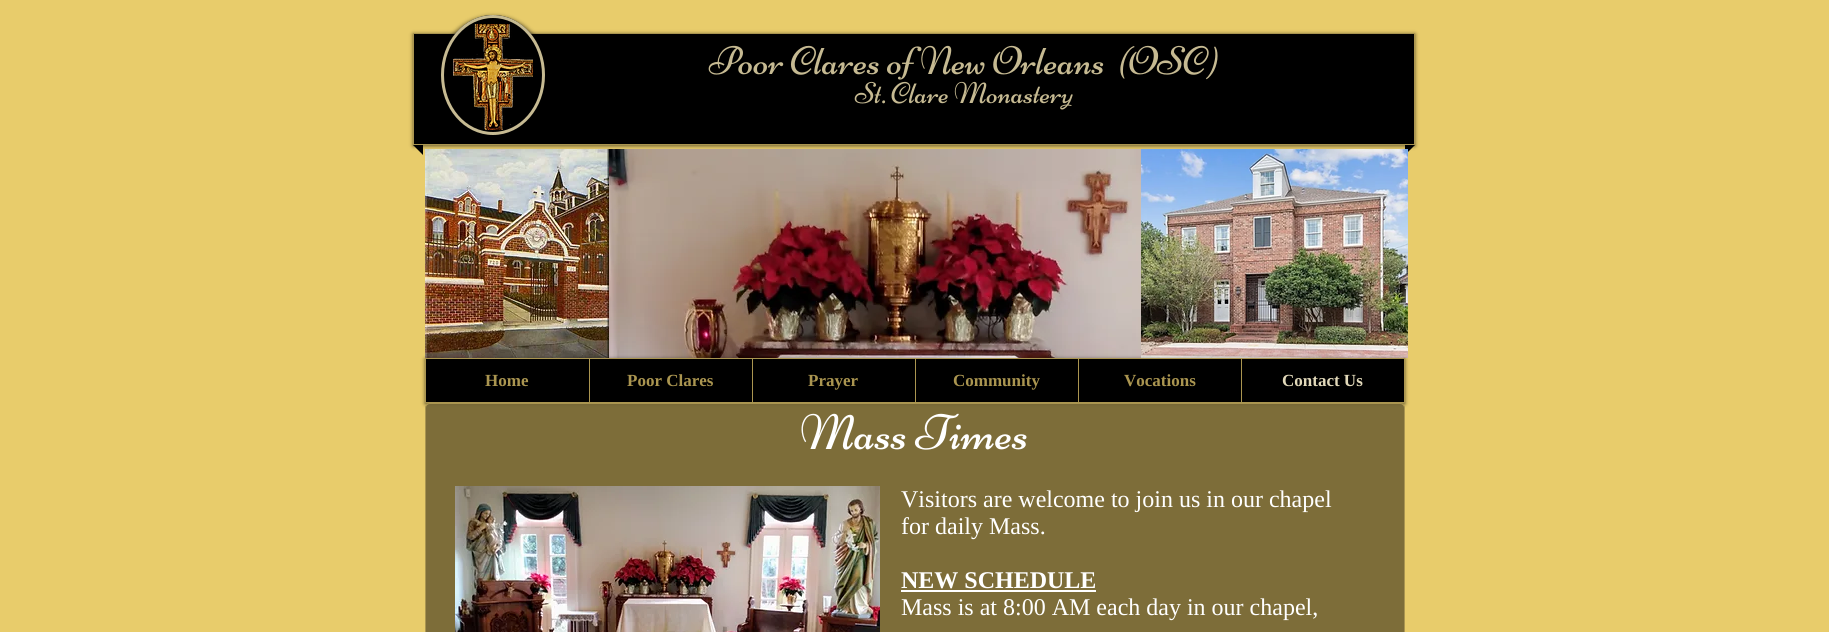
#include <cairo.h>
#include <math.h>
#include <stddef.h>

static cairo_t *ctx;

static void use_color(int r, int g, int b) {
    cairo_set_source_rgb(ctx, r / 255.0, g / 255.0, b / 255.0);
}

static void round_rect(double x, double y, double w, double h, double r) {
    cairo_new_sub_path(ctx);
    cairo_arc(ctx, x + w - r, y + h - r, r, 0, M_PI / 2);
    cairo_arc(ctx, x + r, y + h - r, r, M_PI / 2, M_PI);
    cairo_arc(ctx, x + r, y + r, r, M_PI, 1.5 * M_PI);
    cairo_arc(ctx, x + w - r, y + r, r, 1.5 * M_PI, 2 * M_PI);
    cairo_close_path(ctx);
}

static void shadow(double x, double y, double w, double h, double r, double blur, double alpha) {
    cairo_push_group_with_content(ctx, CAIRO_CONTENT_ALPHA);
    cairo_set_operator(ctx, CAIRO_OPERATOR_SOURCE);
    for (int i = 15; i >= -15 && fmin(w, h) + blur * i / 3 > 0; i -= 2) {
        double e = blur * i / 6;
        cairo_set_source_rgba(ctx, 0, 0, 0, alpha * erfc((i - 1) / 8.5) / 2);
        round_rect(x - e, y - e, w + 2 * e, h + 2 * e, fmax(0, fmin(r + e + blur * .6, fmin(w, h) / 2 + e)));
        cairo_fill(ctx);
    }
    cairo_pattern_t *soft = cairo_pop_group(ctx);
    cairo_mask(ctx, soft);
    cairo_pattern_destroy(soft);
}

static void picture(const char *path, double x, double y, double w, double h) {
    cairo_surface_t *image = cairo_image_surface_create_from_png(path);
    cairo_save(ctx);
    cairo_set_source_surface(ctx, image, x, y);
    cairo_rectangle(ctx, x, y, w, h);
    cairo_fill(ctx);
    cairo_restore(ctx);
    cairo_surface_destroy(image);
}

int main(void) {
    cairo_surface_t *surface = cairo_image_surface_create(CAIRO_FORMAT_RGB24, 1829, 632);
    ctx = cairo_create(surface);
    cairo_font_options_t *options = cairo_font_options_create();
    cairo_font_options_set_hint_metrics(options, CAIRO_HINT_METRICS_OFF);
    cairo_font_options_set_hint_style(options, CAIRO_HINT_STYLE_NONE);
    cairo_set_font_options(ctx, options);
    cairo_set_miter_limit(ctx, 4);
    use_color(232, 204, 107);
    cairo_paint(ctx);
    use_color(0, 0, 0);
    cairo_new_path(ctx);
    cairo_move_to(ctx, 413, 145);
    cairo_line_to(ctx, 423, 145);
    cairo_line_to(ctx, 423, 155);
    cairo_close_path(ctx);
    cairo_fill(ctx);
    cairo_new_path(ctx);
    cairo_move_to(ctx, 1405, 145);
    cairo_line_to(ctx, 1415, 145);
    cairo_line_to(ctx, 1405, 155);
    cairo_close_path(ctx);
    cairo_fill(ctx);
    use_color(0, 0, 0);
    shadow(413, 34, 1002, 112, 0, 2, 0.6);
    use_color(0, 0, 0);
    cairo_rectangle(ctx, 413.5, 33.5, 1001, 111);
    cairo_fill_preserve(ctx);
    use_color(170, 149, 80);
    cairo_set_line_width(ctx, 1);
    cairo_stroke(ctx);
    use_color(0, 0, 0);
    shadow(441, 16, 104, 120, 52, 2, 0.6);
    use_color(0, 0, 0);
    cairo_new_path(ctx);
    cairo_move_to(ctx, 493, 15);
    cairo_curve_to(ctx, 521.5, 15, 545, 42, 545, 75);
    cairo_curve_to(ctx, 545, 108, 521.5, 135, 493, 135);
    cairo_curve_to(ctx, 464.5, 135, 441, 108, 441, 75);
    cairo_curve_to(ctx, 441, 42, 464.5, 15, 493, 15);
    cairo_close_path(ctx);
    cairo_fill(ctx);
    cairo_new_path(ctx);
    cairo_move_to(ctx, 493, 16.5);
    cairo_curve_to(ctx, 521, 16.5, 543.5, 42.5, 543.5, 75);
    cairo_curve_to(ctx, 543.5, 107.5, 521, 133.5, 493, 133.5);
    cairo_curve_to(ctx, 465, 133.5, 442.5, 107.5, 442.5, 75);
    cairo_curve_to(ctx, 442.5, 42.5, 465, 16.5, 493, 16.5);
    cairo_close_path(ctx);
    use_color(198, 186, 146);
    cairo_set_line_width(ctx, 3);
    cairo_stroke(ctx);
    picture("img1.png", 453, 24, 80, 106);
    picture("img2.png", 708, 45, 510, 35);
    picture("img3.png", 854, 81, 219, 29);
    picture("img4.png", 425, 149, 184, 209);
    picture("img5.png", 609, 149, 532, 209);
    picture("img6.png", 1141, 149, 267, 209);
    use_color(0, 0, 0);
    shadow(425, 359, 980, 45, 0, 2, 0.6);
    use_color(0, 0, 0);
    cairo_rectangle(ctx, 425.5, 358.5, 979, 44);
    cairo_fill_preserve(ctx);
    use_color(170, 149, 80);
    cairo_set_line_width(ctx, 1);
    cairo_stroke(ctx);
    cairo_select_font_face(ctx, "Liberation Serif", CAIRO_FONT_SLANT_NORMAL, CAIRO_FONT_WEIGHT_BOLD);
    cairo_set_font_size(ctx, 17);
    cairo_move_to(ctx, 485, 386);
    cairo_show_text(ctx, "Home");
    cairo_rectangle(ctx, 589, 359, 1, 43);
    cairo_fill(ctx);
    cairo_move_to(ctx, 627, 386);
    cairo_show_text(ctx, "Poor Clares");
    cairo_rectangle(ctx, 752, 359, 1, 43);
    cairo_fill(ctx);
    cairo_move_to(ctx, 808, 386);
    cairo_show_text(ctx, "Prayer");
    cairo_rectangle(ctx, 915, 359, 1, 43);
    cairo_fill(ctx);
    cairo_move_to(ctx, 953, 386);
    cairo_show_text(ctx, "Community");
    cairo_rectangle(ctx, 1078, 359, 1, 43);
    cairo_fill(ctx);
    cairo_move_to(ctx, 1124, 386);
    cairo_show_text(ctx, "Vocations");
    cairo_rectangle(ctx, 1241, 359, 1, 43);
    cairo_fill(ctx);
    use_color(226, 217, 186);
    cairo_move_to(ctx, 1282, 386);
    cairo_show_text(ctx, "Contact Us");
    cairo_set_source_rgba(ctx, 0.443, 0.388, 0.208, 0.9);
    round_rect(425.5, 403.5, 979, 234, 4.5);
    cairo_fill_preserve(ctx);
    use_color(170, 149, 80);
    cairo_stroke(ctx);
    picture("img7.png", 801, 413, 226, 37);
    picture("img8.png", 455, 486, 425, 146);
    cairo_select_font_face(ctx, "Liberation Serif", CAIRO_FONT_SLANT_NORMAL, CAIRO_FONT_WEIGHT_NORMAL);
    cairo_set_font_size(ctx, 24);
    use_color(255, 255, 255);
    cairo_move_to(ctx, 901, 507);
    cairo_show_text(ctx, "Visitors are welcome to join us in our chapel");
    cairo_move_to(ctx, 901, 534);
    cairo_show_text(ctx, "for daily Mass.");
    cairo_select_font_face(ctx, "Liberation Serif", CAIRO_FONT_SLANT_NORMAL, CAIRO_FONT_WEIGHT_BOLD);
    cairo_move_to(ctx, 901, 588);
    cairo_show_text(ctx, "NEW SCHEDULE");
    cairo_rectangle(ctx, 901, 590, 195, 2);
    cairo_fill(ctx);
    cairo_select_font_face(ctx, "Liberation Serif", CAIRO_FONT_SLANT_NORMAL, CAIRO_FONT_WEIGHT_NORMAL);
    cairo_move_to(ctx, 901, 615);
    cairo_show_text(ctx, "Mass is at 8:00 AM each day in our chapel,");
    cairo_surface_write_to_png(surface, "result.png");
    cairo_font_options_destroy(options);
    cairo_destroy(ctx);
    cairo_surface_destroy(surface);
    return 0;
}
